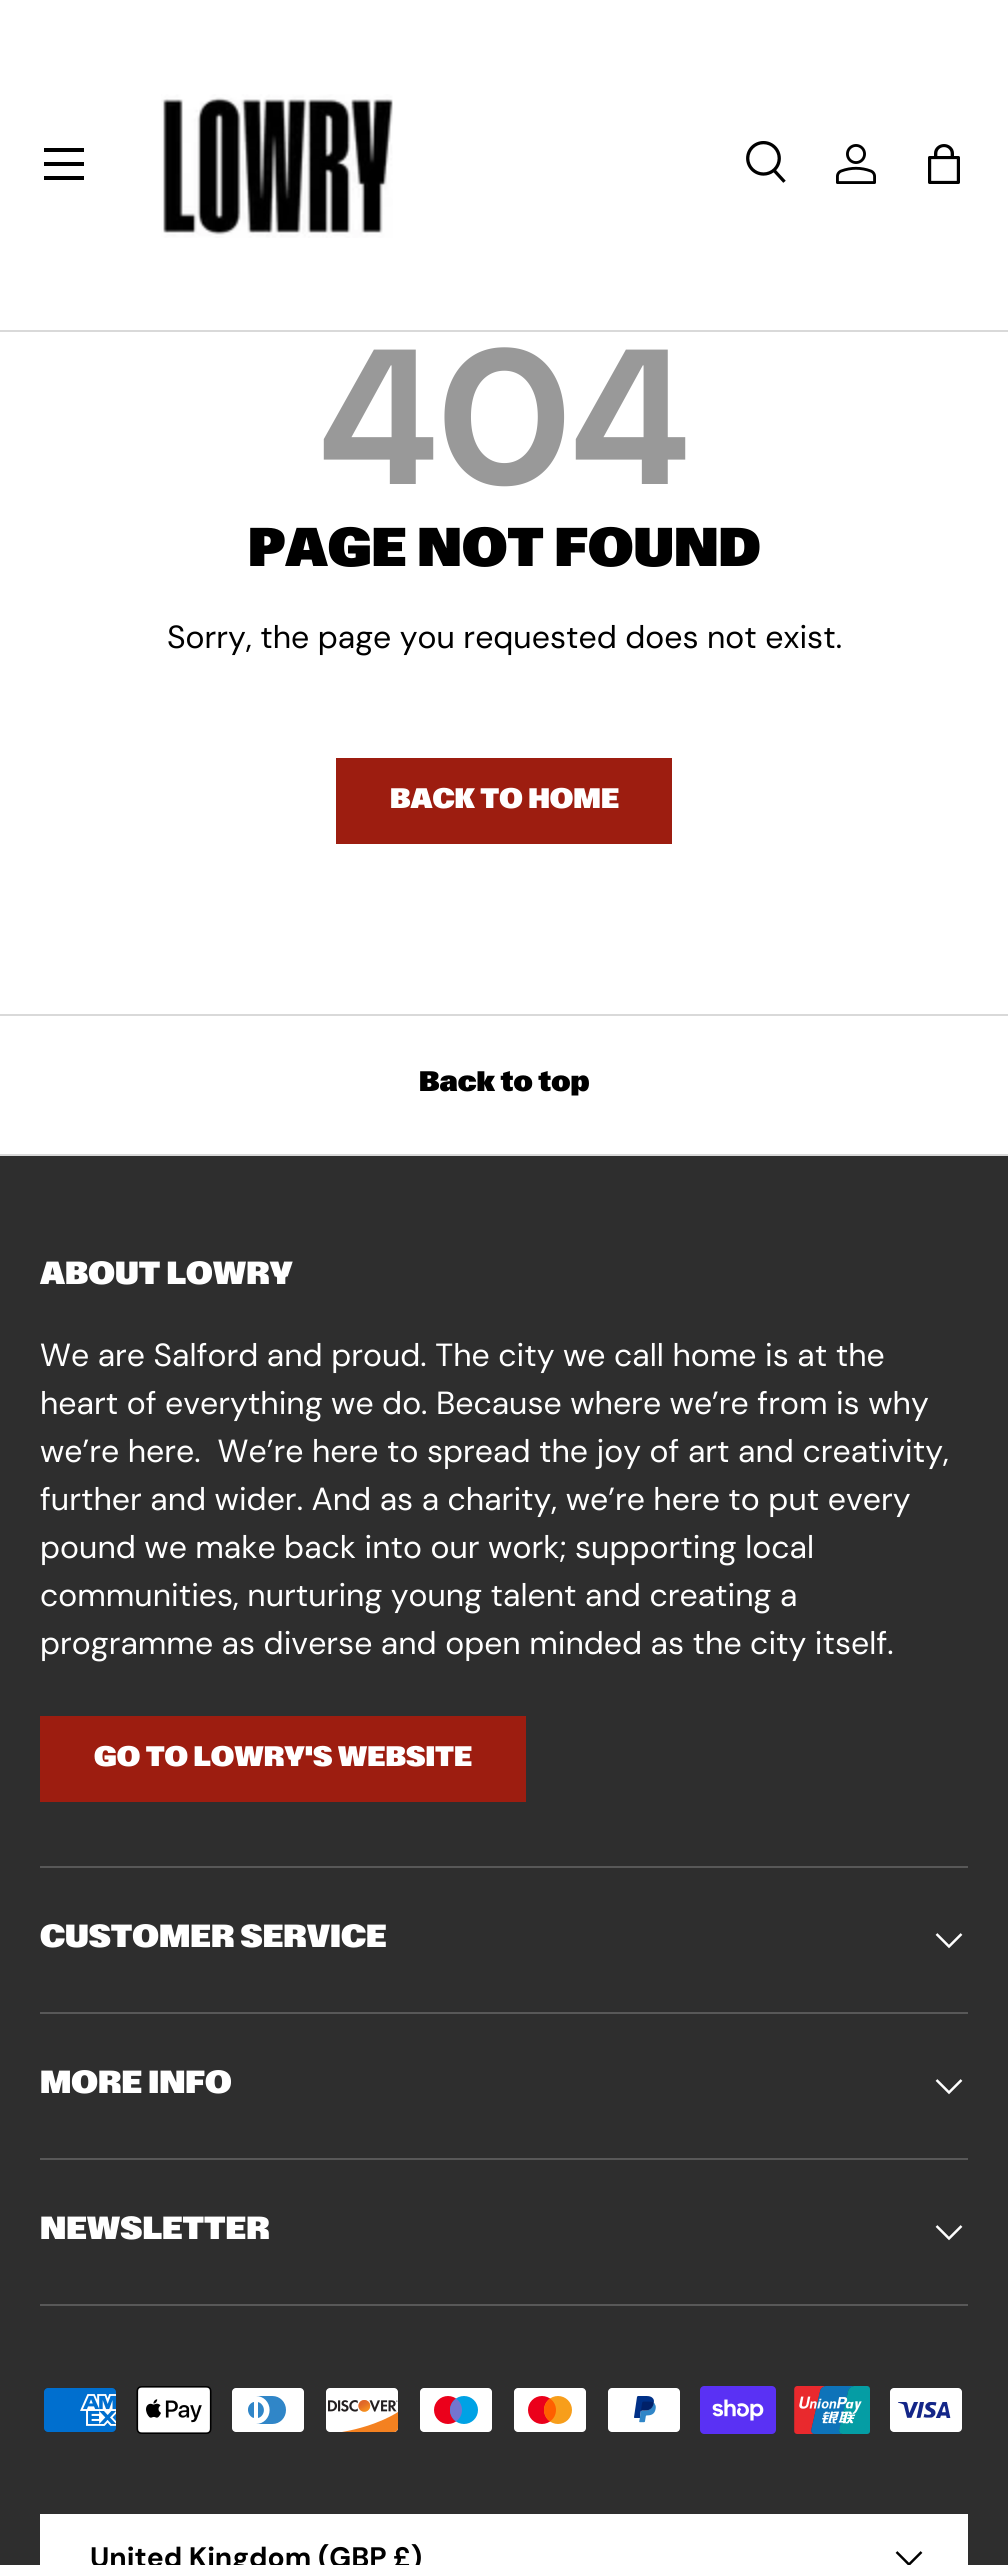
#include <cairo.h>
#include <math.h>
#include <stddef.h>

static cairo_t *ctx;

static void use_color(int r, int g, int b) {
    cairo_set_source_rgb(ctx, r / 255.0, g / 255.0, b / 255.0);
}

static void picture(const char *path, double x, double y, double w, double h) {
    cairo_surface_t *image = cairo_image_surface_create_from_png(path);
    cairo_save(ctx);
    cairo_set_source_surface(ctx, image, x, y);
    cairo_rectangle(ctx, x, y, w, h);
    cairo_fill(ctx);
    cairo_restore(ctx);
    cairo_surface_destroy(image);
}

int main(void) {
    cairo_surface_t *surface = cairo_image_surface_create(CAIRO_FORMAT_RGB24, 1008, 2565);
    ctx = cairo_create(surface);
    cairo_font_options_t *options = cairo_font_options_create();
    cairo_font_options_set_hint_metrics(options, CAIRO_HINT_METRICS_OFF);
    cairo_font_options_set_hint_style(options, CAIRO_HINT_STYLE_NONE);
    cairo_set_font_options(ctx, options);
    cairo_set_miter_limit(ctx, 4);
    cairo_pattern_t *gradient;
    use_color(255, 255, 255);
    cairo_paint(ctx);
    use_color(217, 217, 217);
    cairo_rectangle(ctx, 0, 330, 1008, 2);
    cairo_fill(ctx);
    use_color(0, 0, 0);
    cairo_rectangle(ctx, 44, 148, 40, 4);
    cairo_fill(ctx);
    cairo_rectangle(ctx, 44, 176, 40, 4);
    cairo_fill(ctx);
    cairo_rectangle(ctx, 44, 162, 40, 4);
    cairo_fill(ctx);
    picture("img1.png", 161, 94, 232, 144);
    picture("img2.png", 746, 141, 40, 42);
    picture("img3.png", 836, 144, 40, 40);
    picture("img4.png", 928, 144, 32, 40);
    cairo_select_font_face(ctx, "DM Sans", CAIRO_FONT_SLANT_NORMAL, CAIRO_FONT_WEIGHT_BOLD);
    cairo_set_font_size(ctx, 192);
    use_color(153, 153, 153);
    cairo_move_to(ctx, 319, 484);
    cairo_show_text(ctx, "404");
    cairo_select_font_face(ctx, "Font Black", CAIRO_FONT_SLANT_NORMAL, CAIRO_FONT_WEIGHT_NORMAL);
    cairo_set_font_size(ctx, 54.5);
    use_color(0, 0, 0);
    cairo_move_to(ctx, 248, 566);
    cairo_show_text(ctx, "PAGE NOT FOUND");
    cairo_select_font_face(ctx, "DM Sans", CAIRO_FONT_SLANT_NORMAL, CAIRO_FONT_WEIGHT_NORMAL);
    cairo_set_font_size(ctx, 32);
    cairo_move_to(ctx, 167, 648);
    cairo_show_text(ctx, "Sorry, the page you requested does not exist.");
    gradient = cairo_pattern_create_linear(-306, 682, 650, 920);
    cairo_pattern_add_color_stop_rgba(gradient, 0.6, 0.722, 0.263, 0.22, 1);
    cairo_pattern_add_color_stop_rgba(gradient, 0.6, 0.616, 0.114, 0.063, 1);
    cairo_pattern_add_color_stop_rgba(gradient, 1, 0.616, 0.114, 0.063, 1);
    cairo_set_source(ctx, gradient);
    cairo_pattern_destroy(gradient);
    cairo_rectangle(ctx, 338, 760, 332, 82);
    cairo_fill(ctx);
    cairo_rectangle(ctx, 337, 759, 334, 84);
    use_color(157, 29, 16);
    cairo_stroke(ctx);
    cairo_select_font_face(ctx, "Font Black", CAIRO_FONT_SLANT_NORMAL, CAIRO_FONT_WEIGHT_NORMAL);
    cairo_set_font_size(ctx, 28.2);
    use_color(255, 255, 255);
    cairo_move_to(ctx, 390, 808);
    cairo_show_text(ctx, "BACK TO HOME");
    use_color(217, 217, 217);
    cairo_rectangle(ctx, 0, 1014, 1008, 2);
    cairo_fill(ctx);
    cairo_rectangle(ctx, 0, 1154, 1008, 2);
    cairo_fill(ctx);
    use_color(0, 0, 0);
    cairo_move_to(ctx, 419, 1091);
    cairo_show_text(ctx, "Back to top");
    use_color(46, 46, 46);
    cairo_rectangle(ctx, 0, 1156, 1008, 1409);
    cairo_fill(ctx);
    cairo_set_font_size(ctx, 32);
    use_color(255, 255, 255);
    cairo_move_to(ctx, 40, 1284);
    cairo_show_text(ctx, "ABOUT LOWRY");
    cairo_select_font_face(ctx, "DM Sans", CAIRO_FONT_SLANT_NORMAL, CAIRO_FONT_WEIGHT_NORMAL);
    cairo_move_to(ctx, 40, 1366);
    cairo_show_text(ctx, "We are Salford and proud. The city we call home is at the");
    cairo_move_to(ctx, 40, 1414);
    cairo_show_text(ctx, "heart of everything we do. Because where we’re from is why");
    cairo_move_to(ctx, 40, 1462);
    cairo_show_text(ctx, "we’re here.  We’re here to spread the joy of art and creativity,");
    cairo_move_to(ctx, 40, 1510);
    cairo_show_text(ctx, "further and wider. And as a charity, we’re here to put every");
    cairo_move_to(ctx, 40, 1558);
    cairo_show_text(ctx, "pound we make back into our work; supporting local");
    cairo_move_to(ctx, 40, 1606);
    cairo_show_text(ctx, "communities, nurturing young talent and creating a");
    cairo_move_to(ctx, 40, 1654);
    cairo_show_text(ctx, "programme as diverse and open minded as the city itself.");
    gradient = cairo_pattern_create_linear(-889, 1587, 491, 1931);
    cairo_pattern_add_color_stop_rgba(gradient, 0.6, 0.722, 0.263, 0.22, 1);
    cairo_pattern_add_color_stop_rgba(gradient, 0.6, 0.616, 0.114, 0.063, 1);
    cairo_pattern_add_color_stop_rgba(gradient, 1, 0.616, 0.114, 0.063, 1);
    cairo_set_source(ctx, gradient);
    cairo_pattern_destroy(gradient);
    cairo_rectangle(ctx, 42, 1718, 482, 82);
    cairo_fill(ctx);
    cairo_rectangle(ctx, 41, 1717, 484, 84);
    use_color(157, 29, 16);
    cairo_stroke(ctx);
    cairo_select_font_face(ctx, "Font Black", CAIRO_FONT_SLANT_NORMAL, CAIRO_FONT_WEIGHT_NORMAL);
    cairo_set_font_size(ctx, 28.2);
    use_color(255, 255, 255);
    cairo_move_to(ctx, 94, 1766);
    cairo_show_text(ctx, "GO TO LOWRY'S WEBSITE");
    use_color(88, 88, 88);
    cairo_rectangle(ctx, 40, 1866, 928, 2);
    cairo_fill(ctx);
    cairo_rectangle(ctx, 40, 2012, 928, 2);
    cairo_fill(ctx);
    cairo_set_font_size(ctx, 32);
    use_color(255, 255, 255);
    cairo_move_to(ctx, 40, 1947);
    cairo_show_text(ctx, "CUSTOMER SERVICE");
    cairo_new_path(ctx);
    cairo_move_to(ctx, 961.5, 1934);
    cairo_line_to(ctx, 949, 1946.5);
    cairo_line_to(ctx, 936.5, 1934);
    cairo_set_line_width(ctx, 2.5);
    cairo_stroke(ctx);
    use_color(88, 88, 88);
    cairo_rectangle(ctx, 40, 2158, 928, 2);
    cairo_fill(ctx);
    use_color(255, 255, 255);
    cairo_move_to(ctx, 40, 2093);
    cairo_show_text(ctx, "MORE INFO");
    cairo_new_path(ctx);
    cairo_move_to(ctx, 961.5, 2080);
    cairo_line_to(ctx, 949, 2092.5);
    cairo_line_to(ctx, 936.5, 2080);
    cairo_stroke(ctx);
    use_color(88, 88, 88);
    cairo_rectangle(ctx, 40, 2304, 928, 2);
    cairo_fill(ctx);
    use_color(255, 255, 255);
    cairo_move_to(ctx, 40, 2239);
    cairo_show_text(ctx, "NEWSLETTER");
    cairo_new_path(ctx);
    cairo_move_to(ctx, 961.5, 2226);
    cairo_line_to(ctx, 949, 2238.5);
    cairo_line_to(ctx, 936.5, 2226);
    cairo_stroke(ctx);
    picture("img5.png", 44, 2388, 72, 44);
    picture("img6.png", 136, 2386, 76, 48);
    picture("img7.png", 232, 2388, 72, 44);
    picture("img8.png", 326, 2388, 73, 44);
    picture("img9.png", 420, 2388, 72, 44);
    picture("img10.png", 514, 2388, 72, 44);
    picture("img11.png", 608, 2388, 72, 44);
    picture("img12.png", 700, 2386, 76, 48);
    picture("img13.png", 794, 2386, 76, 48);
    picture("img14.png", 890, 2388, 72, 44);
    cairo_rectangle(ctx, 40, 2514, 928, 51);
    cairo_fill(ctx);
    cairo_select_font_face(ctx, "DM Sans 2", CAIRO_FONT_SLANT_NORMAL, CAIRO_FONT_WEIGHT_BOLD);
    cairo_set_font_size(ctx, 28.2);
    use_color(0, 0, 0);
    cairo_move_to(ctx, 90, 2567);
    cairo_show_text(ctx, "United Kingdom (GBP £)");
    cairo_new_path(ctx);
    cairo_move_to(ctx, 921.5, 2552);
    cairo_line_to(ctx, 909, 2564.5);
    cairo_line_to(ctx, 896.5, 2552);
    cairo_stroke(ctx);
    cairo_surface_write_to_png(surface, "result.png");
    cairo_font_options_destroy(options);
    cairo_destroy(ctx);
    cairo_surface_destroy(surface);
    return 0;
}
